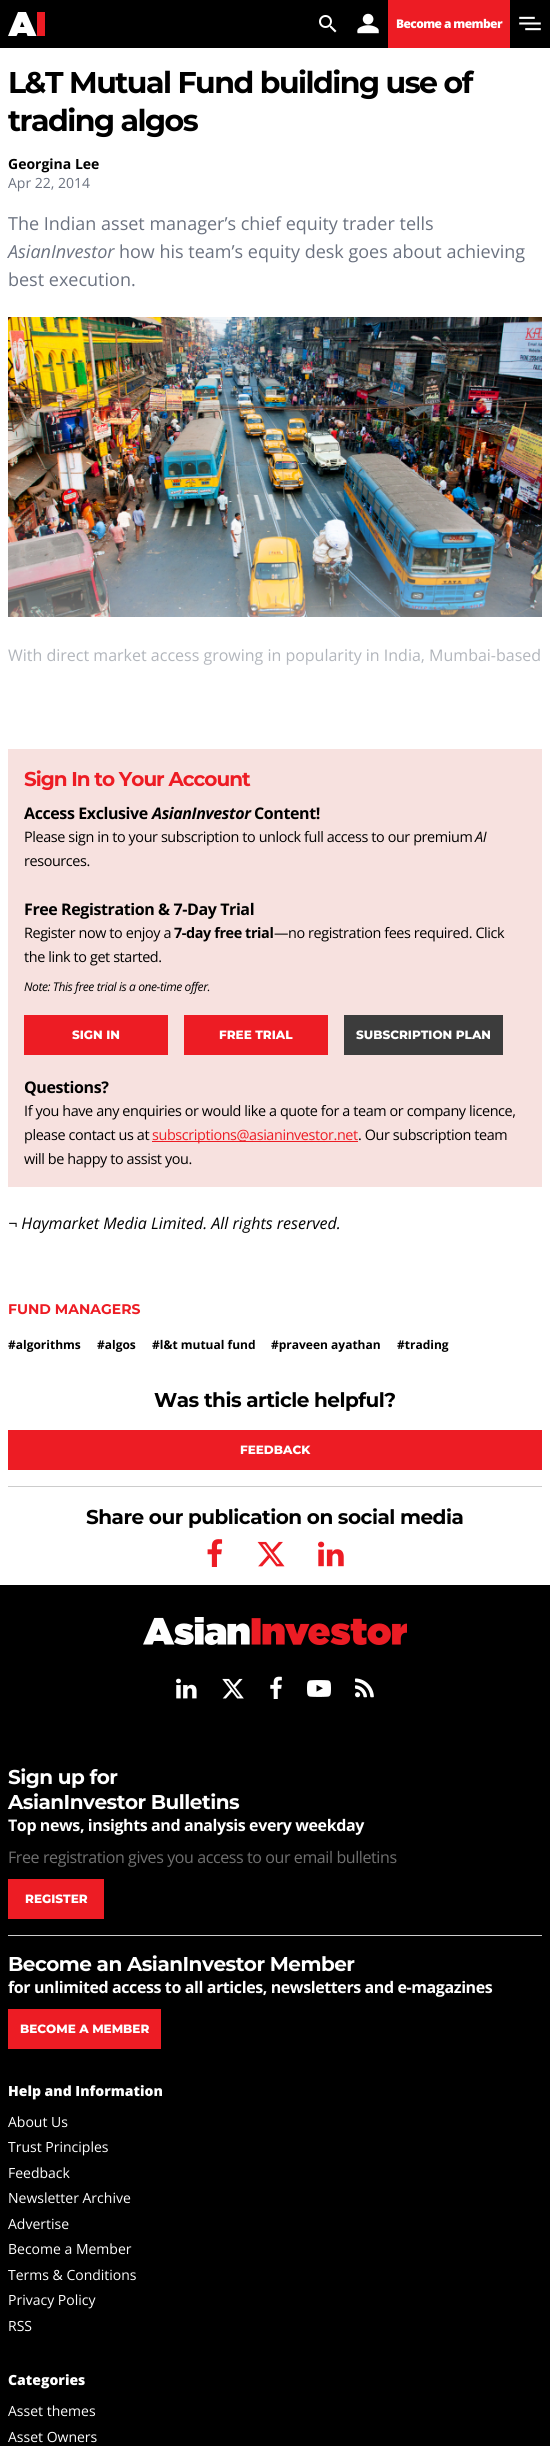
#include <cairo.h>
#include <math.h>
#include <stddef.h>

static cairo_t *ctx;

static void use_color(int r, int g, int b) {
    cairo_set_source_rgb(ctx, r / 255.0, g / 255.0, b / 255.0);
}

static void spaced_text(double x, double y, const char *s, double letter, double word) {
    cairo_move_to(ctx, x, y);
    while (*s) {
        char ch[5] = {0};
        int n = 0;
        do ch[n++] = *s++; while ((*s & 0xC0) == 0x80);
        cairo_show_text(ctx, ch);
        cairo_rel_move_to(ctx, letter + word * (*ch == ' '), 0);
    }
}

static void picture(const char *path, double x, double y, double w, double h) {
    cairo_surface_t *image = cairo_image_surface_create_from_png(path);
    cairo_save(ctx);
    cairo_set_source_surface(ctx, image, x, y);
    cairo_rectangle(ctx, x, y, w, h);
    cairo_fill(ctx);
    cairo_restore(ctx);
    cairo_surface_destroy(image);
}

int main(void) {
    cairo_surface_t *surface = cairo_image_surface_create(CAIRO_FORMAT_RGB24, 550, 2446);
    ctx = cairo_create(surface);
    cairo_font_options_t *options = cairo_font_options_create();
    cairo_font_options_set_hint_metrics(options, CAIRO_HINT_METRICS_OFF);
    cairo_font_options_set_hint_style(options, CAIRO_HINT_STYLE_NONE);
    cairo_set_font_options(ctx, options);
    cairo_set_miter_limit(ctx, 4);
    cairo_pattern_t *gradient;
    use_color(255, 255, 255);
    cairo_paint(ctx);
    use_color(0, 0, 0);
    cairo_rectangle(ctx, 0, 0, 550, 48);
    cairo_fill(ctx);
    use_color(236, 28, 36);
    cairo_rectangle(ctx, 37, 12, 8, 24);
    cairo_fill(ctx);
    use_color(255, 255, 255);
    cairo_new_path(ctx);
    cairo_move_to(ctx, 20, 27);
    cairo_line_to(ctx, 22, 21.5);
    cairo_line_to(ctx, 24.5, 27);
    cairo_close_path(ctx);
    cairo_move_to(ctx, 8, 36);
    cairo_line_to(ctx, 16.5, 36);
    cairo_line_to(ctx, 18, 33);
    cairo_line_to(ctx, 26.5, 33);
    cairo_line_to(ctx, 27.5, 36);
    cairo_line_to(ctx, 36.5, 36);
    cairo_line_to(ctx, 26, 12);
    cairo_line_to(ctx, 18, 12);
    cairo_close_path(ctx);
    cairo_fill(ctx);
    picture("img1.png", 319, 15, 18, 18);
    picture("img2.png", 357, 13, 22, 21);
    use_color(237, 28, 36);
    cairo_rectangle(ctx, 388, 0, 122, 48);
    cairo_fill(ctx);
    cairo_select_font_face(ctx, "Open Sans ExtraBold", CAIRO_FONT_SLANT_NORMAL, CAIRO_FONT_WEIGHT_NORMAL);
    cairo_set_font_size(ctx, 12);
    use_color(255, 255, 255);
    spaced_text(396, 28, "Become a member", -0.6, 0);
    picture("img3.png", 519, 16, 22, 15);
    cairo_select_font_face(ctx, "Montserrat", CAIRO_FONT_SLANT_NORMAL, CAIRO_FONT_WEIGHT_BOLD);
    cairo_set_font_size(ctx, 30);
    use_color(0, 0, 0);
    spaced_text(8, 93, "L&T Mutual Fund building use of", -1.5, 0);
    spaced_text(8, 131, "trading algos", -1.5, 0);
    cairo_select_font_face(ctx, "Open Sans", CAIRO_FONT_SLANT_NORMAL, CAIRO_FONT_WEIGHT_BOLD);
    cairo_set_font_size(ctx, 14);
    cairo_move_to(ctx, 8, 169);
    cairo_show_text(ctx, "Georgina Lee");
    cairo_select_font_face(ctx, "Open Sans", CAIRO_FONT_SLANT_NORMAL, CAIRO_FONT_WEIGHT_NORMAL);
    use_color(107, 114, 128);
    cairo_move_to(ctx, 8, 188);
    cairo_show_text(ctx, "Apr 22, 2014");
    cairo_set_font_size(ctx, 18);
    cairo_move_to(ctx, 8, 230);
    cairo_show_text(ctx, "The Indian asset manager’s chief equity trader tells");
    cairo_select_font_face(ctx, "Open Sans", CAIRO_FONT_SLANT_ITALIC, CAIRO_FONT_WEIGHT_NORMAL);
    cairo_move_to(ctx, 8, 258);
    cairo_show_text(ctx, "AsianInvestor");
    cairo_select_font_face(ctx, "Open Sans", CAIRO_FONT_SLANT_NORMAL, CAIRO_FONT_WEIGHT_NORMAL);
    cairo_move_to(ctx, 119, 258);
    cairo_show_text(ctx, "how his team’s equity desk goes about achieving");
    cairo_move_to(ctx, 8, 286);
    cairo_show_text(ctx, "best execution.");
    picture("img4.png", 8, 317, 534, 300);
    cairo_set_font_size(ctx, 16);
    use_color(55, 65, 81);
    cairo_move_to(ctx, 8, 661);
    cairo_show_text(ctx, "With direct market access growing in popularity in India, Mumbai-based");
    use_color(247, 225, 223);
    cairo_rectangle(ctx, 8, 749, 534, 438);
    cairo_fill(ctx);
    gradient = cairo_pattern_create_linear(275, 749, 275, 509);
    cairo_pattern_add_color_stop_rgba(gradient, 0, 1, 1, 1, 1);
    cairo_pattern_add_color_stop_rgba(gradient, 1, 1, 1, 1, 0);
    cairo_set_source(ctx, gradient);
    cairo_pattern_destroy(gradient);
    cairo_rectangle(ctx, 8, 514, 534, 151);
    cairo_fill(ctx);
    cairo_select_font_face(ctx, "Montserrat", CAIRO_FONT_SLANT_NORMAL, CAIRO_FONT_WEIGHT_BOLD);
    cairo_set_font_size(ctx, 20);
    use_color(237, 28, 36);
    spaced_text(24, 786, "Sign In to Your Account", -1, 0);
    cairo_select_font_face(ctx, "Open Sans", CAIRO_FONT_SLANT_NORMAL, CAIRO_FONT_WEIGHT_BOLD);
    cairo_set_font_size(ctx, 16);
    use_color(0, 0, 0);
    spaced_text(24, 819, "Access Exclusive", -0.4, 0);
    cairo_select_font_face(ctx, "Open Sans", CAIRO_FONT_SLANT_ITALIC, CAIRO_FONT_WEIGHT_BOLD);
    spaced_text(152, 819, "AsianInvestor", -0.4, 0);
    cairo_select_font_face(ctx, "Open Sans", CAIRO_FONT_SLANT_NORMAL, CAIRO_FONT_WEIGHT_BOLD);
    spaced_text(254, 819, "Content!", -0.4, 0);
    cairo_select_font_face(ctx, "Open Sans", CAIRO_FONT_SLANT_NORMAL, CAIRO_FONT_WEIGHT_NORMAL);
    cairo_set_font_size(ctx, 14.4);
    spaced_text(24, 842, "Please sign in to your subscription to unlock full access to our premium", -0.4, 0);
    cairo_select_font_face(ctx, "Open Sans", CAIRO_FONT_SLANT_ITALIC, CAIRO_FONT_WEIGHT_NORMAL);
    spaced_text(475, 842, "AI", -0.4, 0);
    cairo_select_font_face(ctx, "Open Sans", CAIRO_FONT_SLANT_NORMAL, CAIRO_FONT_WEIGHT_NORMAL);
    spaced_text(24, 866, "resources.", -0.4, 0);
    cairo_select_font_face(ctx, "Open Sans", CAIRO_FONT_SLANT_NORMAL, CAIRO_FONT_WEIGHT_BOLD);
    cairo_set_font_size(ctx, 16);
    spaced_text(24, 915, "Free Registration & 7-Day Trial", -0.4, 0);
    cairo_select_font_face(ctx, "Open Sans", CAIRO_FONT_SLANT_NORMAL, CAIRO_FONT_WEIGHT_NORMAL);
    cairo_set_font_size(ctx, 14.4);
    spaced_text(24, 938, "Register now to enjoy a", -0.4, 0);
    cairo_select_font_face(ctx, "Open Sans", CAIRO_FONT_SLANT_NORMAL, CAIRO_FONT_WEIGHT_BOLD);
    spaced_text(174, 938, "7-day free trial", -0.4, 0);
    cairo_select_font_face(ctx, "Open Sans", CAIRO_FONT_SLANT_NORMAL, CAIRO_FONT_WEIGHT_NORMAL);
    spaced_text(274, 938, "—no registration fees required. Click", -0.4, 0);
    spaced_text(24, 962, "the link to get started.", -0.4, 0);
    cairo_select_font_face(ctx, "Open Sans", CAIRO_FONT_SLANT_ITALIC, CAIRO_FONT_WEIGHT_NORMAL);
    cairo_set_font_size(ctx, 12);
    spaced_text(24, 991, "Note: This free trial is a one-time offer.", -0.4, 0);
    use_color(237, 28, 36);
    cairo_rectangle(ctx, 24, 1015, 144, 40);
    cairo_fill(ctx);
    cairo_select_font_face(ctx, "Montserrat ExtraBold", CAIRO_FONT_SLANT_NORMAL, CAIRO_FONT_WEIGHT_NORMAL);
    use_color(255, 255, 255);
    cairo_move_to(ctx, 72, 1039);
    cairo_show_text(ctx, "SIGN IN");
    use_color(237, 28, 36);
    cairo_rectangle(ctx, 184, 1015, 144, 40);
    cairo_fill(ctx);
    use_color(255, 255, 255);
    cairo_move_to(ctx, 219, 1039);
    cairo_show_text(ctx, "FREE TRIAL");
    use_color(60, 60, 60);
    cairo_rectangle(ctx, 344, 1015, 159, 40);
    cairo_fill(ctx);
    use_color(255, 255, 255);
    cairo_move_to(ctx, 356, 1039);
    cairo_show_text(ctx, "SUBSCRIPTION PLAN");
    cairo_select_font_face(ctx, "Open Sans", CAIRO_FONT_SLANT_NORMAL, CAIRO_FONT_WEIGHT_BOLD);
    cairo_set_font_size(ctx, 16);
    use_color(0, 0, 0);
    spaced_text(24, 1093, "Questions?", -0.4, 0);
    cairo_select_font_face(ctx, "Open Sans", CAIRO_FONT_SLANT_NORMAL, CAIRO_FONT_WEIGHT_NORMAL);
    cairo_set_font_size(ctx, 14.4);
    spaced_text(24, 1116, "If you have any enquiries or would like a quote for a team or company licence,", -0.4, 0);
    spaced_text(24, 1140, "please contact us at", -0.4, 0);
    use_color(237, 28, 36);
    cairo_rectangle(ctx, 152, 1141, 206, 1);
    cairo_fill(ctx);
    spaced_text(152, 1140, "subscriptions@asianinvestor.net", -0.4, 0);
    use_color(0, 0, 0);
    spaced_text(358, 1140, ". Our subscription team", -0.4, 0);
    spaced_text(24, 1164, "will be happy to assist you.", -0.4, 0);
    cairo_select_font_face(ctx, "Open Sans", CAIRO_FONT_SLANT_ITALIC, CAIRO_FONT_WEIGHT_NORMAL);
    cairo_set_font_size(ctx, 16);
    cairo_move_to(ctx, 8, 1229);
    cairo_show_text(ctx, "¬ Haymarket Media Limited. All rights reserved.");
    cairo_select_font_face(ctx, "Montserrat", CAIRO_FONT_SLANT_NORMAL, CAIRO_FONT_WEIGHT_BOLD);
    cairo_set_font_size(ctx, 14);
    use_color(237, 28, 36);
    cairo_move_to(ctx, 8, 1314);
    cairo_show_text(ctx, "FUND MANAGERS");
    cairo_select_font_face(ctx, "Open Sans", CAIRO_FONT_SLANT_NORMAL, CAIRO_FONT_WEIGHT_BOLD);
    cairo_set_font_size(ctx, 12);
    use_color(0, 0, 0);
    cairo_move_to(ctx, 8, 1349);
    cairo_show_text(ctx, "#algorithms");
    cairo_move_to(ctx, 97, 1349);
    cairo_show_text(ctx, "#algos");
    cairo_move_to(ctx, 152, 1349);
    cairo_show_text(ctx, "#l&t mutual fund");
    cairo_move_to(ctx, 271, 1349);
    cairo_show_text(ctx, "#praveen ayathan");
    cairo_move_to(ctx, 397, 1349);
    cairo_show_text(ctx, "#trading");
    cairo_select_font_face(ctx, "Montserrat", CAIRO_FONT_SLANT_NORMAL, CAIRO_FONT_WEIGHT_BOLD);
    cairo_set_font_size(ctx, 20);
    spaced_text(154, 1407, "Was this article helpful?", -0.5, 0);
    use_color(237, 28, 36);
    cairo_rectangle(ctx, 8, 1430, 534, 40);
    cairo_fill(ctx);
    cairo_select_font_face(ctx, "Montserrat ExtraBold", CAIRO_FONT_SLANT_NORMAL, CAIRO_FONT_WEIGHT_NORMAL);
    cairo_set_font_size(ctx, 12);
    use_color(255, 255, 255);
    cairo_move_to(ctx, 240, 1454);
    cairo_show_text(ctx, "FEEDBACK");
    use_color(204, 204, 204);
    cairo_rectangle(ctx, 8, 1486, 534, 1);
    cairo_fill(ctx);
    cairo_select_font_face(ctx, "Montserrat", CAIRO_FONT_SLANT_NORMAL, CAIRO_FONT_WEIGHT_BOLD);
    cairo_set_font_size(ctx, 20);
    use_color(0, 0, 0);
    spaced_text(86, 1524, "Share our publication on social media", -0.5, 0);
    picture("img5.png", 207, 1539, 16, 28);
    picture("img6.png", 257, 1541, 28, 26);
    picture("img7.png", 318, 1541, 26, 26);
    cairo_rectangle(ctx, 0, 1585, 550, 861);
    cairo_fill(ctx);
    picture("img8.png", 143, 1617, 264, 28);
    picture("img9.png", 176, 1678, 21, 21);
    picture("img10.png", 222, 1678, 22, 21);
    picture("img11.png", 270, 1676, 12, 23);
    picture("img12.png", 307, 1680, 24, 17);
    picture("img13.png", 355, 1678, 19, 20);
    use_color(255, 255, 255);
    spaced_text(8, 1784, "Sign up for", -0.5, 0);
    spaced_text(8, 1809, "AsianInvestor Bulletins", -0.5, 0);
    cairo_select_font_face(ctx, "Open Sans", CAIRO_FONT_SLANT_NORMAL, CAIRO_FONT_WEIGHT_BOLD);
    cairo_set_font_size(ctx, 16);
    spaced_text(8, 1831, "Top news, insights and analysis every weekday", -0.4, 0);
    cairo_select_font_face(ctx, "Open Sans", CAIRO_FONT_SLANT_NORMAL, CAIRO_FONT_WEIGHT_NORMAL);
    use_color(112, 112, 112);
    spaced_text(8, 1863, "Free registration gives you access to our email bulletins", -0.4, 0);
    use_color(237, 28, 36);
    cairo_rectangle(ctx, 8, 1879, 96, 40);
    cairo_fill(ctx);
    cairo_select_font_face(ctx, "Montserrat ExtraBold", CAIRO_FONT_SLANT_NORMAL, CAIRO_FONT_WEIGHT_NORMAL);
    cairo_set_font_size(ctx, 12);
    use_color(255, 255, 255);
    cairo_move_to(ctx, 25, 1903);
    cairo_show_text(ctx, "REGISTER");
    use_color(204, 204, 204);
    cairo_rectangle(ctx, 8, 1935, 534, 1);
    cairo_fill(ctx);
    cairo_select_font_face(ctx, "Montserrat", CAIRO_FONT_SLANT_NORMAL, CAIRO_FONT_WEIGHT_BOLD);
    cairo_set_font_size(ctx, 20);
    use_color(255, 255, 255);
    spaced_text(8, 1971, "Become an AsianInvestor Member", -0.5, 0);
    cairo_select_font_face(ctx, "Open Sans", CAIRO_FONT_SLANT_NORMAL, CAIRO_FONT_WEIGHT_BOLD);
    cairo_set_font_size(ctx, 16);
    spaced_text(8, 1993, "for unlimited access to all articles, newsletters and e-magazines", -0.4, 0);
    use_color(237, 28, 36);
    cairo_rectangle(ctx, 8, 2009, 153, 40);
    cairo_fill(ctx);
    cairo_select_font_face(ctx, "Montserrat ExtraBold", CAIRO_FONT_SLANT_NORMAL, CAIRO_FONT_WEIGHT_NORMAL);
    cairo_set_font_size(ctx, 12);
    use_color(255, 255, 255);
    cairo_move_to(ctx, 20, 2033);
    cairo_show_text(ctx, "BECOME A MEMBER");
    cairo_select_font_face(ctx, "Open Sans ExtraBold", CAIRO_FONT_SLANT_NORMAL, CAIRO_FONT_WEIGHT_NORMAL);
    cairo_set_font_size(ctx, 14);
    cairo_move_to(ctx, 8, 2096);
    cairo_show_text(ctx, "Help and Information");
    cairo_select_font_face(ctx, "Open Sans", CAIRO_FONT_SLANT_NORMAL, CAIRO_FONT_WEIGHT_NORMAL);
    cairo_move_to(ctx, 8, 2127);
    cairo_show_text(ctx, "About Us");
    cairo_move_to(ctx, 8, 2152);
    cairo_show_text(ctx, "Trust Principles");
    cairo_move_to(ctx, 8, 2178);
    cairo_show_text(ctx, "Feedback");
    cairo_move_to(ctx, 8, 2203);
    cairo_show_text(ctx, "Newsletter Archive");
    cairo_move_to(ctx, 8, 2229);
    cairo_show_text(ctx, "Advertise");
    cairo_move_to(ctx, 8, 2254);
    cairo_show_text(ctx, "Become a Member");
    cairo_move_to(ctx, 8, 2280);
    cairo_show_text(ctx, "Terms & Conditions");
    cairo_move_to(ctx, 8, 2305);
    cairo_show_text(ctx, "Privacy Policy");
    cairo_move_to(ctx, 8, 2331);
    cairo_show_text(ctx, "RSS");
    cairo_select_font_face(ctx, "Open Sans ExtraBold", CAIRO_FONT_SLANT_NORMAL, CAIRO_FONT_WEIGHT_NORMAL);
    cairo_move_to(ctx, 8, 2385);
    cairo_show_text(ctx, "Categories");
    cairo_select_font_face(ctx, "Open Sans", CAIRO_FONT_SLANT_NORMAL, CAIRO_FONT_WEIGHT_NORMAL);
    cairo_move_to(ctx, 8, 2416);
    cairo_show_text(ctx, "Asset themes");
    cairo_move_to(ctx, 8, 2442);
    cairo_show_text(ctx, "Asset Owners");
    cairo_surface_write_to_png(surface, "result.png");
    cairo_font_options_destroy(options);
    cairo_destroy(ctx);
    cairo_surface_destroy(surface);
    return 0;
}
